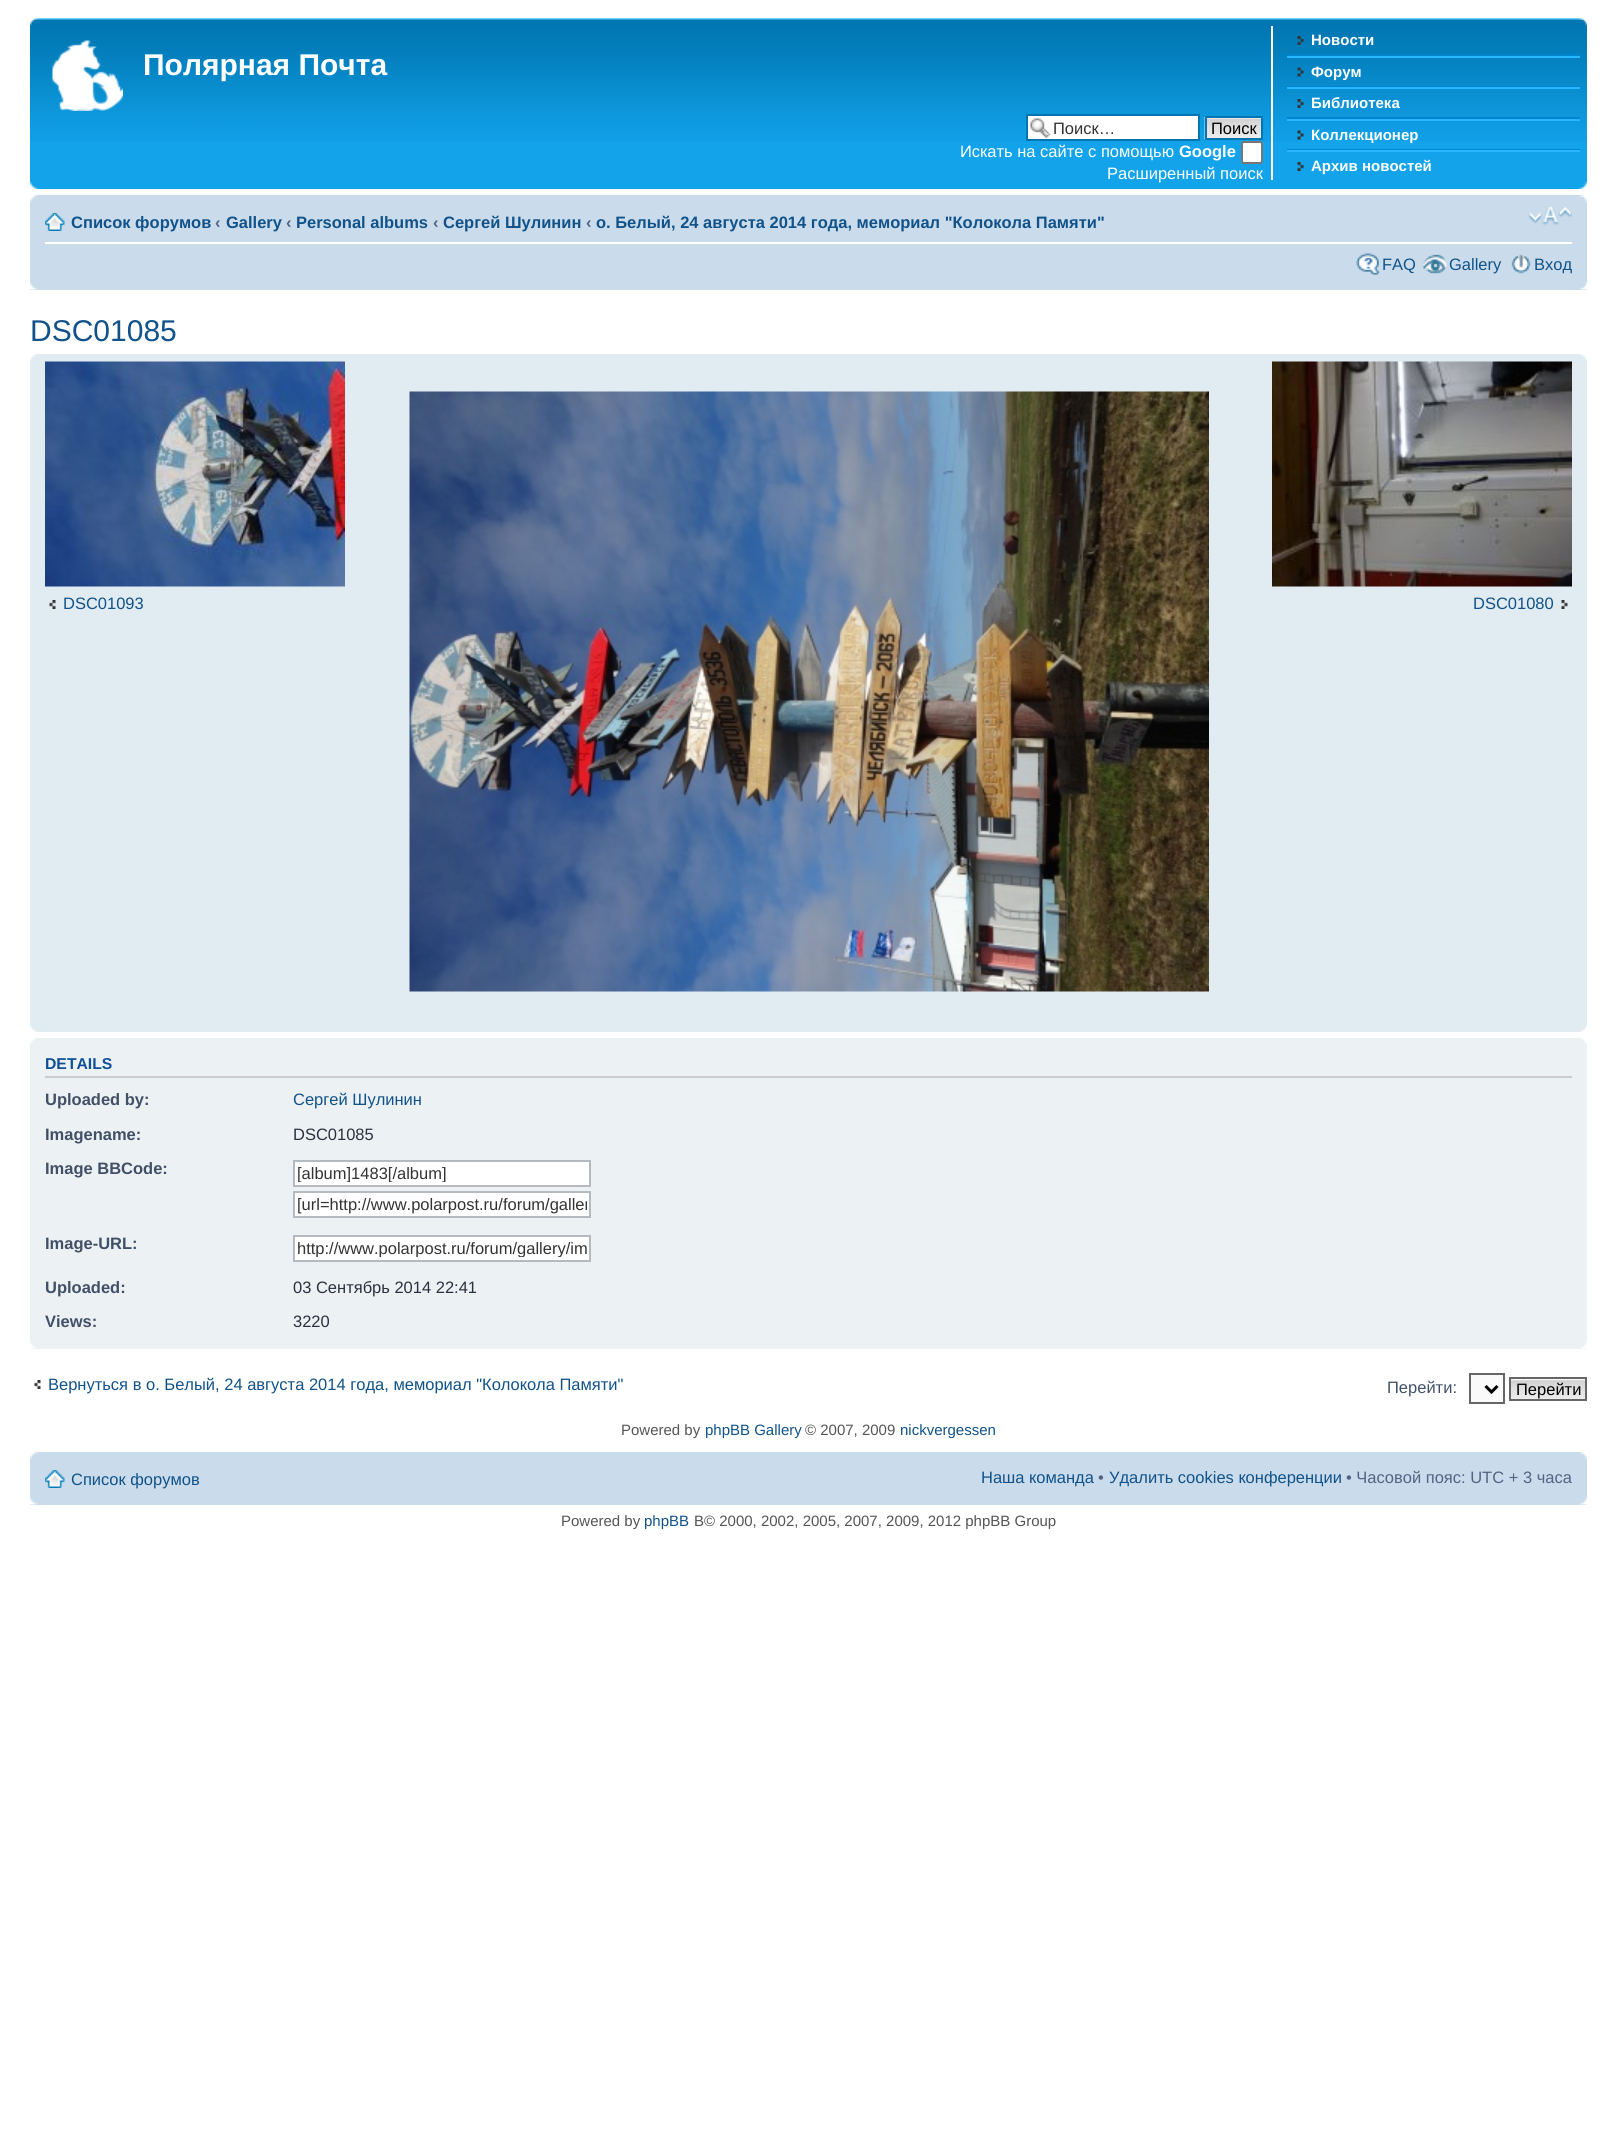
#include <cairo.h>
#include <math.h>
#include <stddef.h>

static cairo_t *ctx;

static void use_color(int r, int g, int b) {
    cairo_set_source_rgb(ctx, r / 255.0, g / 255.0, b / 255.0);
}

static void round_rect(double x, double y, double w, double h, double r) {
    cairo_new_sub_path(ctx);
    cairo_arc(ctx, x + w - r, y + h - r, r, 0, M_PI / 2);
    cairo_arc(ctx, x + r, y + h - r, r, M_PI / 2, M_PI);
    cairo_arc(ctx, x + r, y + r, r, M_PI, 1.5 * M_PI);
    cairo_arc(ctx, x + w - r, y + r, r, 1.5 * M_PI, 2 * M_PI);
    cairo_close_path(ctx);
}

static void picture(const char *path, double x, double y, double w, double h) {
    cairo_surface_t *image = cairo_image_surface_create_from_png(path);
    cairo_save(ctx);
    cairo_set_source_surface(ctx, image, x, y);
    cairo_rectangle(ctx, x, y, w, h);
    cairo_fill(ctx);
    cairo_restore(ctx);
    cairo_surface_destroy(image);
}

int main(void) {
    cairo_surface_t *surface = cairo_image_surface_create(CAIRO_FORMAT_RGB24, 1617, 2134);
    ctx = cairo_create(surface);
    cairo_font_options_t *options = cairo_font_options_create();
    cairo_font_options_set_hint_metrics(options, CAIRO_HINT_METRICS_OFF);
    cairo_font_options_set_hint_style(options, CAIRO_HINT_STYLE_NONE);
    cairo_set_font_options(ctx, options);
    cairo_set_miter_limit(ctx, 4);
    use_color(255, 255, 255);
    cairo_paint(ctx);
    use_color(18, 163, 235);
    cairo_rectangle(ctx, 30, 141, 1557, 48);
    cairo_fill(ctx);
    picture("img1.png", 30, 18, 1557, 123);
    picture("img2.png", 30, 18, 8, 8);
    picture("img3.png", 1579, 18, 8, 8);
    picture("img4.png", 52, 40, 71, 71);
    cairo_select_font_face(ctx, "Liberation Sans", CAIRO_FONT_SLANT_NORMAL, CAIRO_FONT_WEIGHT_BOLD);
    cairo_set_font_size(ctx, 30);
    use_color(255, 255, 255);
    cairo_move_to(ctx, 143, 75);
    cairo_show_text(ctx, "Полярная Почта");
    cairo_rectangle(ctx, 1271, 26, 2, 154);
    cairo_fill(ctx);
    use_color(0, 132, 204);
    cairo_rectangle(ctx, 1287, 54, 293, 2);
    cairo_fill(ctx);
    picture("img5.png", 1297, 36, 7, 9);
    cairo_set_font_size(ctx, 15);
    use_color(255, 255, 255);
    cairo_move_to(ctx, 1311, 45);
    cairo_show_text(ctx, "Новости");
    use_color(38, 183, 255);
    cairo_rectangle(ctx, 1287, 56, 293, 2);
    cairo_fill(ctx);
    use_color(0, 132, 204);
    cairo_rectangle(ctx, 1287, 86, 293, 1);
    cairo_fill(ctx);
    picture("img6.png", 1297, 67, 7, 10);
    use_color(255, 255, 255);
    cairo_move_to(ctx, 1311, 77);
    cairo_show_text(ctx, "Форум");
    use_color(38, 183, 255);
    cairo_rectangle(ctx, 1287, 87, 293, 2);
    cairo_fill(ctx);
    use_color(0, 132, 204);
    cairo_rectangle(ctx, 1287, 117, 293, 2);
    cairo_fill(ctx);
    picture("img7.png", 1297, 99, 7, 9);
    use_color(255, 255, 255);
    cairo_move_to(ctx, 1311, 108);
    cairo_show_text(ctx, "Библиотека");
    use_color(38, 183, 255);
    cairo_rectangle(ctx, 1287, 119, 293, 2);
    cairo_fill(ctx);
    use_color(0, 132, 204);
    cairo_rectangle(ctx, 1287, 149, 293, 1);
    cairo_fill(ctx);
    picture("img8.png", 1297, 130, 7, 10);
    use_color(255, 255, 255);
    cairo_move_to(ctx, 1311, 140);
    cairo_show_text(ctx, "Коллекционер");
    use_color(38, 183, 255);
    cairo_rectangle(ctx, 1287, 150, 293, 2);
    cairo_fill(ctx);
    picture("img9.png", 1297, 162, 7, 9);
    use_color(255, 255, 255);
    cairo_move_to(ctx, 1311, 171);
    cairo_show_text(ctx, "Архив новостей");
    cairo_rectangle(ctx, 1028, 116, 170, 23);
    cairo_fill(ctx);
    picture("img10.png", 1030, 118, 21, 20);
    cairo_rectangle(ctx, 1027, 115, 172, 25);
    use_color(0, 117, 176);
    cairo_stroke(ctx);
    cairo_select_font_face(ctx, "Liberation Sans", CAIRO_FONT_SLANT_NORMAL, CAIRO_FONT_WEIGHT_NORMAL);
    cairo_set_font_size(ctx, 16.5);
    use_color(51, 51, 51);
    cairo_move_to(ctx, 1053, 134);
    cairo_show_text(ctx, "Поиск…");
    picture("img11.png", 1204, 117, 57, 23);
    cairo_rectangle(ctx, 1206, 117, 56, 22);
    use_color(0, 117, 176);
    cairo_stroke(ctx);
    use_color(0, 0, 0);
    cairo_move_to(ctx, 1211, 134);
    cairo_show_text(ctx, "Поиск");
    use_color(255, 255, 255);
    cairo_move_to(ctx, 960, 157);
    cairo_show_text(ctx, "Искать на сайте с помощью");
    cairo_select_font_face(ctx, "Liberation Sans", CAIRO_FONT_SLANT_NORMAL, CAIRO_FONT_WEIGHT_BOLD);
    cairo_move_to(ctx, 1179, 157);
    cairo_show_text(ctx, "Google");
    round_rect(1242, 142, 20, 21, 2);
    cairo_fill_preserve(ctx);
    use_color(118, 118, 118);
    cairo_stroke(ctx);
    cairo_select_font_face(ctx, "Liberation Sans", CAIRO_FONT_SLANT_NORMAL, CAIRO_FONT_WEIGHT_NORMAL);
    use_color(255, 255, 255);
    cairo_move_to(ctx, 1107, 179);
    cairo_show_text(ctx, "Расширенный поиск");
    picture("img12.png", 30, 181, 8, 8);
    picture("img13.png", 1579, 181, 8, 8);
    use_color(202, 220, 235);
    cairo_rectangle(ctx, 30, 195, 1557, 95);
    cairo_fill(ctx);
    picture("img14.png", 30, 195, 8, 8);
    picture("img15.png", 1579, 195, 8, 8);
    use_color(255, 255, 255);
    cairo_rectangle(ctx, 45, 242, 1527, 2);
    cairo_fill(ctx);
    picture("img16.png", 45, 213, 20, 18);
    cairo_select_font_face(ctx, "Liberation Sans", CAIRO_FONT_SLANT_NORMAL, CAIRO_FONT_WEIGHT_BOLD);
    use_color(16, 82, 137);
    cairo_move_to(ctx, 71, 228);
    cairo_show_text(ctx, "Список форумов");
    use_color(83, 100, 130);
    cairo_move_to(ctx, 215, 228);
    cairo_show_text(ctx, "‹");
    use_color(16, 82, 137);
    cairo_move_to(ctx, 226, 228);
    cairo_show_text(ctx, "Gallery");
    use_color(83, 100, 130);
    cairo_move_to(ctx, 286, 228);
    cairo_show_text(ctx, "‹");
    use_color(16, 82, 137);
    cairo_move_to(ctx, 296, 228);
    cairo_show_text(ctx, "Personal albums");
    use_color(83, 100, 130);
    cairo_move_to(ctx, 433, 228);
    cairo_show_text(ctx, "‹");
    use_color(16, 82, 137);
    cairo_move_to(ctx, 443, 228);
    cairo_show_text(ctx, "Сергей Шулинин");
    use_color(83, 100, 130);
    cairo_move_to(ctx, 586, 228);
    cairo_show_text(ctx, "‹");
    use_color(16, 82, 137);
    cairo_move_to(ctx, 596, 228);
    cairo_show_text(ctx, "о. Белый, 24 августа 2014 года, мемориал \"Колокола Памяти\"");
    picture("img17.png", 1528, 206, 44, 20);
    picture("img18.png", 1356, 253, 24, 22);
    cairo_select_font_face(ctx, "Liberation Sans", CAIRO_FONT_SLANT_NORMAL, CAIRO_FONT_WEIGHT_NORMAL);
    cairo_move_to(ctx, 1382, 270);
    cairo_show_text(ctx, "FAQ");
    picture("img19.png", 1423, 254, 24, 20);
    cairo_move_to(ctx, 1449, 270);
    cairo_show_text(ctx, "Gallery");
    picture("img20.png", 1511, 254, 20, 20);
    cairo_move_to(ctx, 1534, 270);
    cairo_show_text(ctx, "Вход");
    picture("img21.png", 30, 282, 8, 8);
    picture("img22.png", 1579, 282, 8, 8);
    cairo_set_font_size(ctx, 30);
    cairo_move_to(ctx, 30, 341);
    cairo_show_text(ctx, "DSC01085");
    use_color(225, 235, 242);
    cairo_rectangle(ctx, 30, 354, 1557, 678);
    cairo_fill(ctx);
    picture("img23.png", 30, 354, 7, 7);
    picture("img24.png", 1580, 354, 7, 7);
    picture("img25.png", 45, 361, 300, 226);
    picture("img26.png", 49, 600, 7, 9);
    cairo_set_font_size(ctx, 16.5);
    use_color(16, 82, 137);
    cairo_move_to(ctx, 63, 609);
    cairo_show_text(ctx, "DSC01093");
    picture("img27.png", 409, 391, 800, 601);
    picture("img28.png", 1272, 361, 300, 226);
    picture("img29.png", 1561, 600, 7, 9);
    cairo_move_to(ctx, 1473, 609);
    cairo_show_text(ctx, "DSC01080");
    picture("img30.png", 30, 1025, 7, 7);
    picture("img31.png", 1580, 1025, 7, 7);
    use_color(236, 241, 243);
    cairo_rectangle(ctx, 30, 1038, 1557, 311);
    cairo_fill(ctx);
    picture("img32.png", 30, 1038, 7, 7);
    picture("img33.png", 1580, 1038, 7, 7);
    use_color(204, 204, 204);
    cairo_rectangle(ctx, 45, 1076, 1527, 2);
    cairo_fill(ctx);
    cairo_select_font_face(ctx, "Liberation Sans", CAIRO_FONT_SLANT_NORMAL, CAIRO_FONT_WEIGHT_BOLD);
    cairo_set_font_size(ctx, 15.75);
    use_color(17, 80, 152);
    cairo_move_to(ctx, 45, 1069);
    cairo_show_text(ctx, "DETAILS");
    cairo_set_font_size(ctx, 16.5);
    use_color(66, 80, 103);
    cairo_move_to(ctx, 45, 1105);
    cairo_show_text(ctx, "Uploaded by:");
    cairo_select_font_face(ctx, "Liberation Sans", CAIRO_FONT_SLANT_NORMAL, CAIRO_FONT_WEIGHT_NORMAL);
    use_color(16, 82, 137);
    cairo_move_to(ctx, 293, 1105);
    cairo_show_text(ctx, "Сергей Шулинин");
    cairo_select_font_face(ctx, "Liberation Sans", CAIRO_FONT_SLANT_NORMAL, CAIRO_FONT_WEIGHT_BOLD);
    use_color(66, 80, 103);
    cairo_move_to(ctx, 45, 1140);
    cairo_show_text(ctx, "Imagename:");
    cairo_select_font_face(ctx, "Liberation Sans", CAIRO_FONT_SLANT_NORMAL, CAIRO_FONT_WEIGHT_NORMAL);
    use_color(40, 49, 63);
    cairo_move_to(ctx, 293, 1140);
    cairo_show_text(ctx, "DSC01085");
    cairo_select_font_face(ctx, "Liberation Sans", CAIRO_FONT_SLANT_NORMAL, CAIRO_FONT_WEIGHT_BOLD);
    use_color(66, 80, 103);
    cairo_move_to(ctx, 45, 1174);
    cairo_show_text(ctx, "Image BBCode:");
    use_color(255, 255, 255);
    cairo_rectangle(ctx, 294, 1161, 296, 25);
    cairo_fill_preserve(ctx);
    use_color(180, 186, 192);
    cairo_stroke(ctx);
    cairo_save(ctx);
    cairo_rectangle(ctx, 297, 1164, 290, 18);
    cairo_clip(ctx);
    cairo_select_font_face(ctx, "Liberation Sans", CAIRO_FONT_SLANT_NORMAL, CAIRO_FONT_WEIGHT_NORMAL);
    use_color(51, 51, 51);
    cairo_move_to(ctx, 297, 1179);
    cairo_show_text(ctx, "[album]1483[/album]");
    cairo_restore(ctx);
    use_color(255, 255, 255);
    cairo_rectangle(ctx, 294, 1192, 296, 25);
    cairo_fill_preserve(ctx);
    use_color(180, 186, 192);
    cairo_stroke(ctx);
    cairo_save(ctx);
    cairo_rectangle(ctx, 297, 1196, 290, 18);
    cairo_clip(ctx);
    cairo_select_font_face(ctx, "Liberation Sans", CAIRO_FONT_SLANT_NORMAL, CAIRO_FONT_WEIGHT_NORMAL);
    use_color(51, 51, 51);
    cairo_move_to(ctx, 297, 1210);
    cairo_show_text(ctx, "[url=http://www.polarpost.ru/forum/galler");
    cairo_restore(ctx);
    use_color(66, 80, 103);
    cairo_move_to(ctx, 45, 1249);
    cairo_show_text(ctx, "Image-URL:");
    use_color(255, 255, 255);
    cairo_rectangle(ctx, 294, 1236, 296, 25);
    cairo_fill_preserve(ctx);
    use_color(180, 186, 192);
    cairo_stroke(ctx);
    cairo_save(ctx);
    cairo_rectangle(ctx, 297, 1239, 290, 18);
    cairo_clip(ctx);
    cairo_select_font_face(ctx, "Liberation Sans", CAIRO_FONT_SLANT_NORMAL, CAIRO_FONT_WEIGHT_NORMAL);
    use_color(51, 51, 51);
    cairo_move_to(ctx, 297, 1254);
    cairo_show_text(ctx, "http://www.polarpost.ru/forum/gallery/im");
    cairo_restore(ctx);
    use_color(66, 80, 103);
    cairo_move_to(ctx, 45, 1293);
    cairo_show_text(ctx, "Uploaded:");
    cairo_select_font_face(ctx, "Liberation Sans", CAIRO_FONT_SLANT_NORMAL, CAIRO_FONT_WEIGHT_NORMAL);
    use_color(40, 49, 63);
    cairo_move_to(ctx, 293, 1293);
    cairo_show_text(ctx, "03 Сентябрь 2014 22:41");
    cairo_select_font_face(ctx, "Liberation Sans", CAIRO_FONT_SLANT_NORMAL, CAIRO_FONT_WEIGHT_BOLD);
    use_color(66, 80, 103);
    cairo_move_to(ctx, 45, 1327);
    cairo_show_text(ctx, "Views:");
    cairo_select_font_face(ctx, "Liberation Sans", CAIRO_FONT_SLANT_NORMAL, CAIRO_FONT_WEIGHT_NORMAL);
    use_color(40, 49, 63);
    cairo_move_to(ctx, 293, 1327);
    cairo_show_text(ctx, "3220");
    picture("img34.png", 30, 1341, 7, 8);
    picture("img35.png", 1580, 1341, 7, 8);
    picture("img36.png", 34, 1380, 7, 9);
    use_color(16, 82, 137);
    cairo_move_to(ctx, 48, 1390);
    cairo_show_text(ctx, "Вернуться в о. Белый, 24 августа 2014 года, мемориал \"Колокола Памяти\"");
    use_color(66, 80, 103);
    cairo_move_to(ctx, 1387, 1393);
    cairo_show_text(ctx, "Перейти:");
    use_color(250, 250, 250);
    cairo_rectangle(ctx, 1470, 1374, 34, 29);
    cairo_fill_preserve(ctx);
    use_color(102, 102, 102);
    cairo_stroke(ctx);
    cairo_new_path(ctx);
    cairo_move_to(ctx, 1485.5, 1386);
    cairo_line_to(ctx, 1491.5, 1392);
    cairo_line_to(ctx, 1497.5, 1386);
    use_color(0, 0, 0);
    cairo_set_line_width(ctx, 3);
    cairo_stroke(ctx);
    use_color(250, 250, 250);
    cairo_rectangle(ctx, 1511, 1379, 74, 1);
    cairo_fill(ctx);
    picture("img37.png", 1511, 1380, 74, 19);
    cairo_rectangle(ctx, 1510, 1378, 76, 22);
    use_color(102, 102, 102);
    cairo_set_line_width(ctx, 2);
    cairo_stroke(ctx);
    use_color(0, 0, 0);
    cairo_move_to(ctx, 1516, 1395);
    cairo_show_text(ctx, "Перейти");
    cairo_set_font_size(ctx, 15);
    use_color(85, 85, 85);
    cairo_move_to(ctx, 621, 1435);
    cairo_show_text(ctx, "Powered by");
    use_color(16, 82, 137);
    cairo_move_to(ctx, 705, 1435);
    cairo_show_text(ctx, "phpBB Gallery");
    use_color(85, 85, 85);
    cairo_move_to(ctx, 805, 1435);
    cairo_show_text(ctx, "© 2007, 2009");
    use_color(16, 82, 137);
    cairo_move_to(ctx, 900, 1435);
    cairo_show_text(ctx, "nickvergessen");
    use_color(202, 220, 235);
    cairo_rectangle(ctx, 30, 1452, 1557, 53);
    cairo_fill(ctx);
    picture("img14.png", 30, 1452, 8, 8);
    picture("img15.png", 1579, 1452, 8, 8);
    picture("img16.png", 45, 1470, 20, 18);
    cairo_set_font_size(ctx, 16.5);
    use_color(16, 82, 137);
    cairo_move_to(ctx, 71, 1485);
    cairo_show_text(ctx, "Список форумов");
    cairo_move_to(ctx, 981, 1483);
    cairo_show_text(ctx, "Наша команда");
    use_color(83, 100, 130);
    cairo_move_to(ctx, 1098, 1483);
    cairo_show_text(ctx, "•");
    use_color(16, 82, 137);
    cairo_move_to(ctx, 1109, 1483);
    cairo_show_text(ctx, "Удалить cookies конференции");
    use_color(83, 100, 130);
    cairo_move_to(ctx, 1346, 1483);
    cairo_show_text(ctx, "• Часовой пояс: UTC + 3 часа");
    picture("img21.png", 30, 1497, 8, 8);
    picture("img22.png", 1579, 1497, 8, 8);
    cairo_set_font_size(ctx, 15);
    use_color(85, 85, 85);
    cairo_move_to(ctx, 561, 1526);
    cairo_show_text(ctx, "Powered by");
    use_color(16, 82, 137);
    cairo_move_to(ctx, 644, 1526);
    cairo_show_text(ctx, "phpBB");
    use_color(85, 85, 85);
    cairo_move_to(ctx, 694, 1526);
    cairo_show_text(ctx, "В© 2000, 2002, 2005, 2007, 2009, 2012 phpBB Group");
    cairo_surface_write_to_png(surface, "result.png");
    cairo_font_options_destroy(options);
    cairo_destroy(ctx);
    cairo_surface_destroy(surface);
    return 0;
}
